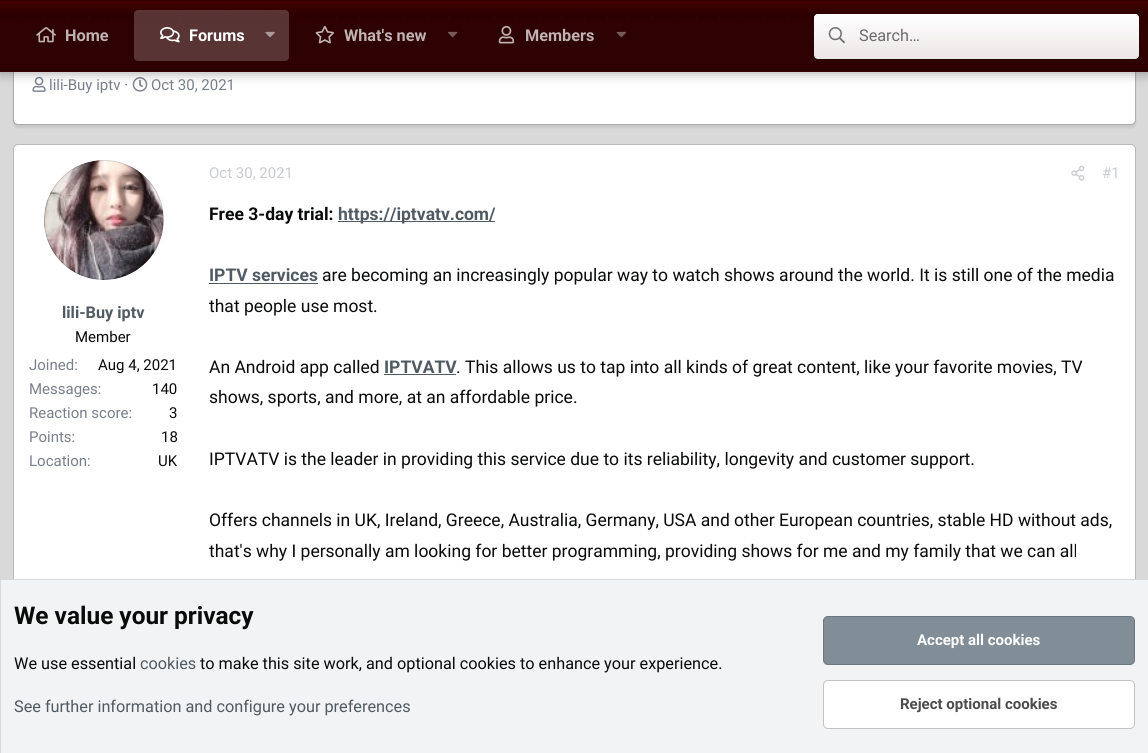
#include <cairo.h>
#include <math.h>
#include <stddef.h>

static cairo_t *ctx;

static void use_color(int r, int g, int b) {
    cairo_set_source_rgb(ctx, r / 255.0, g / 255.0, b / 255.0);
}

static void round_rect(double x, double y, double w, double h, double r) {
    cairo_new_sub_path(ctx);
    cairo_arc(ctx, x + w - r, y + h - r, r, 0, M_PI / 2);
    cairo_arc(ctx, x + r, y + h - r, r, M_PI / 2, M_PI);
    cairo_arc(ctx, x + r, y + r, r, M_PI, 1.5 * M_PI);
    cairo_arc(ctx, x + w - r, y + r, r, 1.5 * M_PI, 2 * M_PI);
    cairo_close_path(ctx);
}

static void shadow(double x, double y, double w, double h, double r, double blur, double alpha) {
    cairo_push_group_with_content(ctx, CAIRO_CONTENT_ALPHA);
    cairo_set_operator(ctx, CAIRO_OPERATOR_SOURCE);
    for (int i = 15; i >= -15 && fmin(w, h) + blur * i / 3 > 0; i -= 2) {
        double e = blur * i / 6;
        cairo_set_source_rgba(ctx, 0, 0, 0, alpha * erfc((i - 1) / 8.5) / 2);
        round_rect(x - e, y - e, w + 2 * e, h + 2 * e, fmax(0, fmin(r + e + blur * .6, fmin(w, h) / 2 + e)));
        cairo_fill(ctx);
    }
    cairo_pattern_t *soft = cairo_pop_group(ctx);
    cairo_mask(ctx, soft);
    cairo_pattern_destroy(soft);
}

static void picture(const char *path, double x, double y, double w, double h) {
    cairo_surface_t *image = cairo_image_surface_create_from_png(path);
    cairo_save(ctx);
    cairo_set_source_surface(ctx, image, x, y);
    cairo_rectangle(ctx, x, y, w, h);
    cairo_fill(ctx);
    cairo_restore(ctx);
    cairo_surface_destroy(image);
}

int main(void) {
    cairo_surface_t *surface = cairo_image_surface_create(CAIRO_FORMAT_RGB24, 1148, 753);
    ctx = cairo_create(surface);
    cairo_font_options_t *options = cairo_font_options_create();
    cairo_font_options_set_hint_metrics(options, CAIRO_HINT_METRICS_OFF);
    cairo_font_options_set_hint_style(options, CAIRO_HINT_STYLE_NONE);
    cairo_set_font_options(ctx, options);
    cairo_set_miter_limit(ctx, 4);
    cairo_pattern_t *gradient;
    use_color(217, 217, 218);
    cairo_paint(ctx);
    use_color(0, 0, 0);
    shadow(13, 0, 1123, 128, 5, 1, 0.08);
    use_color(255, 255, 255);
    round_rect(14, -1, 1121, 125, 4);
    cairo_fill(ctx);
    round_rect(13.5, -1.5, 1122, 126, 4.5);
    cairo_set_source_rgba(ctx, 0.078, 0.078, 0.078, 0.16);
    cairo_set_line_width(ctx, 1);
    cairo_stroke(ctx);
    picture("img10.png", 32, 76, 14, 16);
    picture("img11.png", 132, 77, 16, 15);
    use_color(0, 0, 0);
    shadow(0, -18, 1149, 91, 0, 6, 0.35);
    picture("img1.png", 0, 1, 1148, 71);
    use_color(52, 1, 2);
    cairo_rectangle(ctx, 0, 0, 1148, 1);
    cairo_fill(ctx);
    use_color(36, 1, 1);
    cairo_rectangle(ctx, 0, 70, 1148, 1);
    cairo_fill(ctx);
    picture("img2.png", 36, 27, 20, 16);
    cairo_select_font_face(ctx, "Roboto", CAIRO_FONT_SLANT_NORMAL, CAIRO_FONT_WEIGHT_BOLD);
    cairo_set_font_size(ctx, 16.25);
    use_color(192, 179, 179);
    cairo_move_to(ctx, 65, 41);
    cairo_show_text(ctx, "Home");
    cairo_set_source_rgba(ctx, 1, 1, 1, 0.2);
    round_rect(134, 10, 155, 51, 4);
    cairo_fill(ctx);
    picture("img3.png", 160, 27, 20, 16);
    use_color(255, 255, 255);
    cairo_move_to(ctx, 189, 41);
    cairo_show_text(ctx, "Forums");
    picture("img4.png", 265, 31, 10, 7);
    picture("img5.png", 315, 26, 19, 18);
    use_color(192, 179, 179);
    cairo_move_to(ctx, 344, 41);
    cairo_show_text(ctx, "What's new");
    picture("img6.png", 447, 31, 11, 7);
    picture("img7.png", 498, 25, 17, 19);
    cairo_move_to(ctx, 525, 41);
    cairo_show_text(ctx, "Members");
    picture("img8.png", 616, 31, 10, 7);
    cairo_set_source_rgba(ctx, 1, 1, 1, 0.9);
    round_rect(814, 14, 325, 45, 4);
    cairo_fill(ctx);
    gradient = cairo_pattern_create_linear(976, 14, 976, 59);
    cairo_pattern_add_color_stop_rgba(gradient, 0, 1, 1, 1, 1);
    cairo_pattern_add_color_stop_rgba(gradient, 1, 1, 1, 1, 0);
    cairo_set_source(ctx, gradient);
    cairo_pattern_destroy(gradient);
    round_rect(814, 14, 325, 45, 4);
    cairo_fill(ctx);
    picture("img9.png", 828, 27, 17, 17);
    cairo_select_font_face(ctx, "Roboto", CAIRO_FONT_SLANT_NORMAL, CAIRO_FONT_WEIGHT_NORMAL);
    use_color(109, 108, 108);
    cairo_move_to(ctx, 859, 41);
    cairo_show_text(ctx, "Search…");
    cairo_set_font_size(ctx, 15);
    use_color(121, 128, 138);
    cairo_move_to(ctx, 49, 90);
    cairo_show_text(ctx, "lili-Buy iptv ·");
    cairo_move_to(ctx, 151, 90);
    cairo_show_text(ctx, "Oct 30, 2021");
    use_color(255, 255, 255);
    round_rect(14, 145, 1121, 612, 4);
    cairo_fill(ctx);
    round_rect(13.5, 144.5, 1122, 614, 4.5);
    cairo_set_source_rgba(ctx, 0.078, 0.078, 0.078, 0.16);
    cairo_stroke(ctx);
    picture("img12.png", 44, 160, 120, 120);
    cairo_arc(ctx, 104, 220, 59.5, 0, 2 * M_PI);
    cairo_set_source_rgba(ctx, 0.035, 0.039, 0.039, 0.15);
    cairo_stroke(ctx);
    cairo_select_font_face(ctx, "Roboto", CAIRO_FONT_SLANT_NORMAL, CAIRO_FONT_WEIGHT_BOLD);
    cairo_set_font_size(ctx, 16.25);
    use_color(79, 90, 98);
    cairo_move_to(ctx, 62, 318);
    cairo_show_text(ctx, "lili-Buy iptv");
    cairo_select_font_face(ctx, "Roboto", CAIRO_FONT_SLANT_NORMAL, CAIRO_FONT_WEIGHT_NORMAL);
    cairo_set_font_size(ctx, 15);
    use_color(9, 10, 10);
    cairo_move_to(ctx, 75, 342);
    cairo_show_text(ctx, "Member");
    use_color(121, 128, 138);
    cairo_move_to(ctx, 29, 370);
    cairo_show_text(ctx, "Joined:");
    use_color(9, 10, 10);
    cairo_move_to(ctx, 98, 370);
    cairo_show_text(ctx, "Aug 4, 2021");
    use_color(121, 128, 138);
    cairo_move_to(ctx, 29, 394);
    cairo_show_text(ctx, "Messages:");
    use_color(9, 10, 10);
    cairo_move_to(ctx, 152, 394);
    cairo_show_text(ctx, "140");
    use_color(121, 128, 138);
    cairo_move_to(ctx, 29, 418);
    cairo_show_text(ctx, "Reaction score:");
    use_color(9, 10, 10);
    cairo_move_to(ctx, 169, 418);
    cairo_show_text(ctx, "3");
    use_color(121, 128, 138);
    cairo_move_to(ctx, 29, 442);
    cairo_show_text(ctx, "Points:");
    use_color(9, 10, 10);
    cairo_move_to(ctx, 161, 442);
    cairo_show_text(ctx, "18");
    use_color(121, 128, 138);
    cairo_move_to(ctx, 29, 466);
    cairo_show_text(ctx, "Location:");
    use_color(9, 10, 10);
    cairo_move_to(ctx, 158, 466);
    cairo_show_text(ctx, "UK");
    use_color(201, 204, 208);
    cairo_move_to(ctx, 209, 178);
    cairo_show_text(ctx, "Oct 30, 2021");
    picture("img13.png", 1071, 165, 14, 16);
    cairo_move_to(ctx, 1102, 178);
    cairo_show_text(ctx, "#1");
    cairo_select_font_face(ctx, "Roboto", CAIRO_FONT_SLANT_NORMAL, CAIRO_FONT_WEIGHT_BOLD);
    cairo_set_font_size(ctx, 17.5);
    use_color(9, 10, 10);
    cairo_move_to(ctx, 209, 220);
    cairo_show_text(ctx, "Free 3-day trial:");
    use_color(79, 90, 98);
    cairo_rectangle(ctx, 338, 221, 157, 1);
    cairo_fill(ctx);
    cairo_move_to(ctx, 338, 220);
    cairo_show_text(ctx, "https://iptvatv.com/");
    cairo_move_to(ctx, 209, 281);
    cairo_show_text(ctx, "IPTV services");
    cairo_rectangle(ctx, 209, 283, 109, 1);
    cairo_fill(ctx);
    cairo_select_font_face(ctx, "Roboto", CAIRO_FONT_SLANT_NORMAL, CAIRO_FONT_WEIGHT_NORMAL);
    use_color(9, 10, 10);
    cairo_move_to(ctx, 322, 281);
    cairo_show_text(ctx, "are becoming an increasingly popular way to watch shows around the world. It is still one of the media");
    cairo_move_to(ctx, 209, 312);
    cairo_show_text(ctx, "that people use most.");
    cairo_move_to(ctx, 209, 373);
    cairo_show_text(ctx, "An Android app called");
    cairo_select_font_face(ctx, "Roboto", CAIRO_FONT_SLANT_NORMAL, CAIRO_FONT_WEIGHT_BOLD);
    use_color(79, 90, 98);
    cairo_move_to(ctx, 384, 373);
    cairo_show_text(ctx, "IPTVATV");
    cairo_rectangle(ctx, 384, 374, 72, 1);
    cairo_fill(ctx);
    cairo_select_font_face(ctx, "Roboto", CAIRO_FONT_SLANT_NORMAL, CAIRO_FONT_WEIGHT_NORMAL);
    use_color(9, 10, 10);
    cairo_move_to(ctx, 456, 373);
    cairo_show_text(ctx, ". This allows us to tap into all kinds of great content, like your favorite movies, TV");
    cairo_move_to(ctx, 209, 403);
    cairo_show_text(ctx, "shows, sports, and more, at an affordable price.");
    cairo_move_to(ctx, 209, 465);
    cairo_show_text(ctx, "IPTVATV is the leader in providing this service due to its reliability, longevity and customer support.");
    cairo_move_to(ctx, 209, 526);
    cairo_show_text(ctx, "Offers channels in UK, Ireland, Greece, Australia, Germany, USA and other European countries, stable HD without ads,");
    cairo_move_to(ctx, 209, 557);
    cairo_show_text(ctx, "that's why I personally am looking for better programming, providing shows for me and my family that we can all");
    use_color(242, 243, 244);
    cairo_rectangle(ctx, 0.5, 579.5, 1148, 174);
    cairo_fill_preserve(ctx);
    use_color(217, 217, 217);
    cairo_stroke(ctx);
    cairo_select_font_face(ctx, "Roboto", CAIRO_FONT_SLANT_NORMAL, CAIRO_FONT_WEIGHT_BOLD);
    cairo_set_font_size(ctx, 24.4);
    use_color(9, 10, 10);
    cairo_move_to(ctx, 14, 624);
    cairo_show_text(ctx, "We value your privacy");
    cairo_select_font_face(ctx, "Roboto", CAIRO_FONT_SLANT_NORMAL, CAIRO_FONT_WEIGHT_NORMAL);
    cairo_set_font_size(ctx, 16.25);
    cairo_move_to(ctx, 14, 669);
    cairo_show_text(ctx, "We use essential");
    use_color(79, 90, 98);
    cairo_move_to(ctx, 140, 669);
    cairo_show_text(ctx, "cookies");
    use_color(9, 10, 10);
    cairo_move_to(ctx, 200, 669);
    cairo_show_text(ctx, "to make this site work, and optional cookies to enhance your experience.");
    use_color(79, 90, 98);
    cairo_move_to(ctx, 14, 712);
    cairo_show_text(ctx, "See further information and configure your preferences");
    use_color(129, 142, 151);
    round_rect(823.5, 616.5, 311, 48, 4.5);
    cairo_fill_preserve(ctx);
    use_color(106, 119, 128);
    cairo_stroke(ctx);
    cairo_select_font_face(ctx, "Roboto", CAIRO_FONT_SLANT_NORMAL, CAIRO_FONT_WEIGHT_BOLD);
    cairo_set_font_size(ctx, 15);
    use_color(255, 255, 255);
    cairo_move_to(ctx, 917, 645);
    cairo_show_text(ctx, "Accept all cookies");
    round_rect(823.5, 680.5, 311, 48, 4.5);
    cairo_fill_preserve(ctx);
    use_color(194, 194, 194);
    cairo_stroke(ctx);
    use_color(76, 76, 76);
    cairo_move_to(ctx, 900, 709);
    cairo_show_text(ctx, "Reject optional cookies");
    cairo_surface_write_to_png(surface, "result.png");
    cairo_font_options_destroy(options);
    cairo_destroy(ctx);
    cairo_surface_destroy(surface);
    return 0;
}
